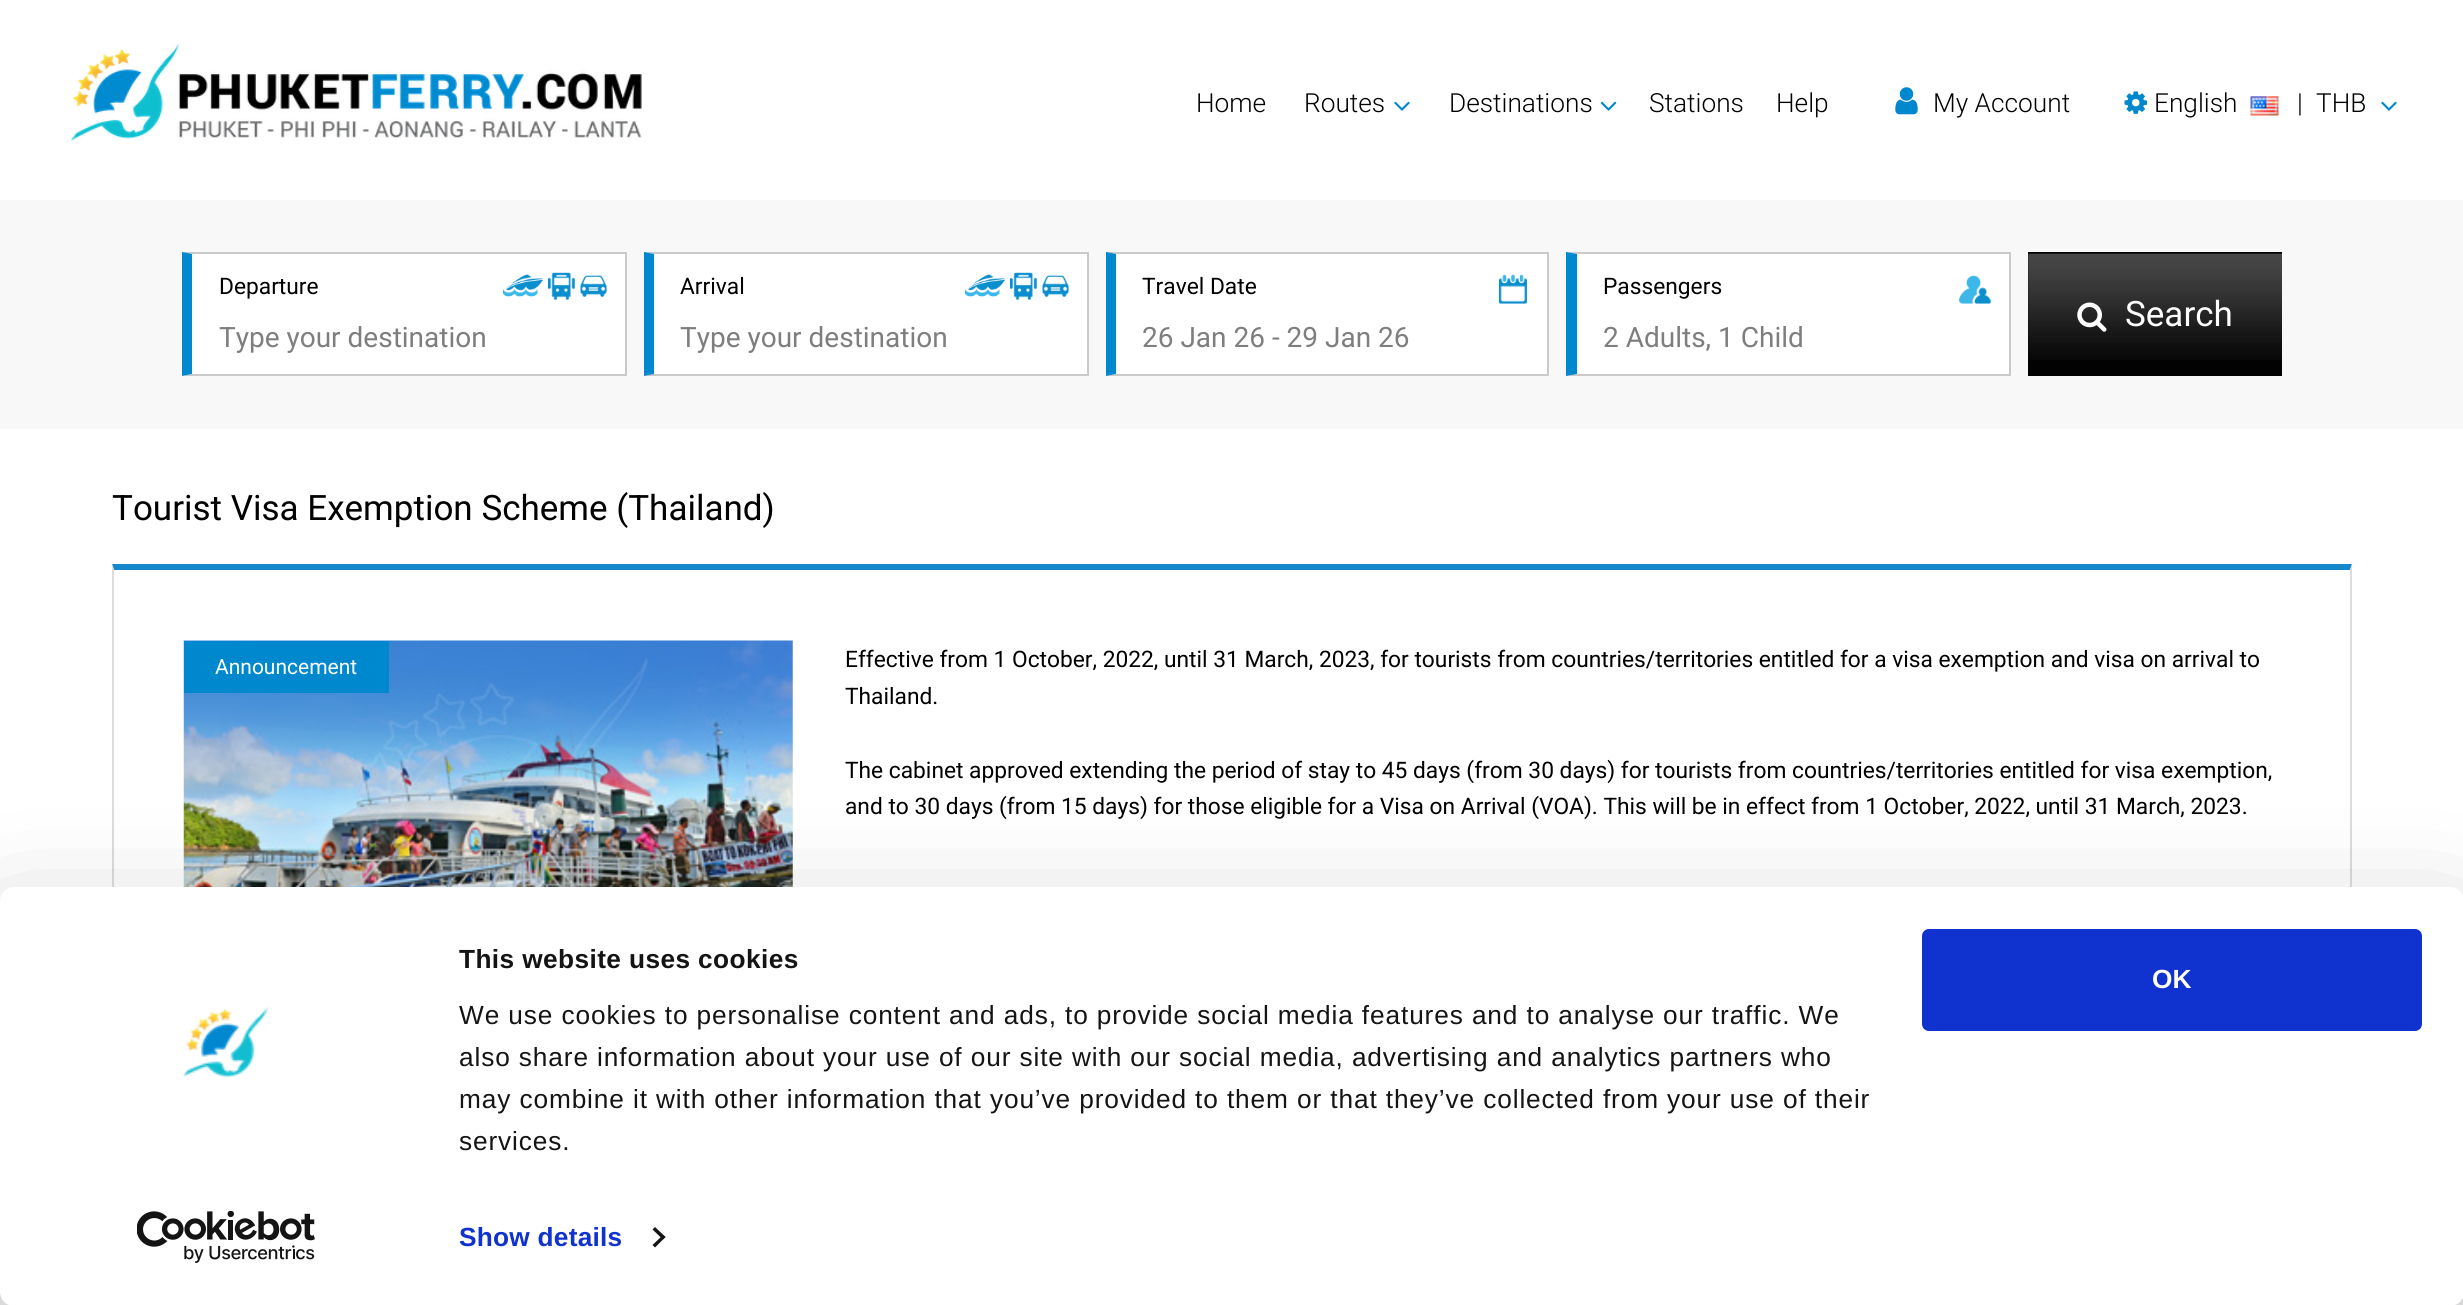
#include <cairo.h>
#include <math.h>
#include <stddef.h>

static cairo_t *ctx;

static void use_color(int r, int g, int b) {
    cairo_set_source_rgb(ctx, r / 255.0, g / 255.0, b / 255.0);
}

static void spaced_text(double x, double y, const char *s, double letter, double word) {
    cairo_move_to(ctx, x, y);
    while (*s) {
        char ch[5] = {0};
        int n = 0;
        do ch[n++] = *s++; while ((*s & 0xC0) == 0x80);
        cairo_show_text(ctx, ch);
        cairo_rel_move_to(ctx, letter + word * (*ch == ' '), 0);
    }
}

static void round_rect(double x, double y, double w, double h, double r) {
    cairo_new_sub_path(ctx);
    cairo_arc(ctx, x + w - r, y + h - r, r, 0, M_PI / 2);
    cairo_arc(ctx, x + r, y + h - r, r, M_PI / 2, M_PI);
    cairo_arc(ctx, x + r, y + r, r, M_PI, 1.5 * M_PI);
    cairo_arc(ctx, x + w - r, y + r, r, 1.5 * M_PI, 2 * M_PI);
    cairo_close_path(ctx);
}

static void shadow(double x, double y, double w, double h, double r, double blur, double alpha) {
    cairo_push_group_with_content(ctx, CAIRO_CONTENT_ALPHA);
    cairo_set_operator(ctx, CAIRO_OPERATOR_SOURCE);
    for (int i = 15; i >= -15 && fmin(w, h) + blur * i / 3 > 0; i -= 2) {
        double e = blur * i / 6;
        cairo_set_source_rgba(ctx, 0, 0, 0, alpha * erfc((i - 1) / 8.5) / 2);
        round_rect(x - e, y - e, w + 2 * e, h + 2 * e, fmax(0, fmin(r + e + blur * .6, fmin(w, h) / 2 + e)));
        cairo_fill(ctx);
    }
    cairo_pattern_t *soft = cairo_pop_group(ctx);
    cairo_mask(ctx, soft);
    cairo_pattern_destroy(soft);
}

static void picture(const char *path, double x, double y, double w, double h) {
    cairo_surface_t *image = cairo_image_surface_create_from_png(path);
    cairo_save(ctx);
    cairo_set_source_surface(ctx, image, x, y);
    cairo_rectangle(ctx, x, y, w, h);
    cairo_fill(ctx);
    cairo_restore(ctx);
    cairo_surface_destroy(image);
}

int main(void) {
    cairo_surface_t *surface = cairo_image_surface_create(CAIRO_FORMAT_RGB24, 2463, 1305);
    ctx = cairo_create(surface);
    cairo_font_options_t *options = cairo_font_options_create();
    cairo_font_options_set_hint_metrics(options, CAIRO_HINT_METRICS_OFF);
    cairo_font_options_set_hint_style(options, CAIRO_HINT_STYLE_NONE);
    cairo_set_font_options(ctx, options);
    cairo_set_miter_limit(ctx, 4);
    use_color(255, 255, 255);
    cairo_paint(ctx);
    picture("img1.png", 71, 43, 571, 98);
    cairo_select_font_face(ctx, "Roboto Light", CAIRO_FONT_SLANT_NORMAL, CAIRO_FONT_WEIGHT_NORMAL);
    cairo_set_font_size(ctx, 26.25);
    use_color(0, 0, 0);
    cairo_move_to(ctx, 1196, 112);
    cairo_show_text(ctx, "Home");
    cairo_move_to(ctx, 1304, 112);
    cairo_show_text(ctx, "Routes");
    picture("img2.png", 1394, 101, 16, 10);
    cairo_move_to(ctx, 1449, 112);
    cairo_show_text(ctx, "Destinations");
    picture("img3.png", 1600, 101, 17, 10);
    cairo_move_to(ctx, 1649, 112);
    cairo_show_text(ctx, "Stations");
    cairo_move_to(ctx, 1776, 112);
    cairo_show_text(ctx, "Help");
    picture("img4.png", 1895, 87, 23, 28);
    cairo_move_to(ctx, 1933, 112);
    cairo_show_text(ctx, "My Account");
    picture("img5.png", 2124, 91, 23, 23);
    cairo_move_to(ctx, 2154, 112);
    cairo_show_text(ctx, "English");
    picture("img6.png", 2250, 96, 29, 20);
    cairo_move_to(ctx, 2297, 112);
    cairo_show_text(ctx, "|");
    cairo_move_to(ctx, 2316, 112);
    cairo_show_text(ctx, "THB");
    picture("img2.png", 2381, 101, 16, 10);
    use_color(248, 248, 248);
    cairo_rectangle(ctx, 0, 200, 2463, 229);
    cairo_fill(ctx);
    use_color(255, 255, 255);
    cairo_rectangle(ctx, 193, 254, 432, 120);
    cairo_fill(ctx);
    use_color(203, 202, 201);
    cairo_new_path(ctx);
    cairo_move_to(ctx, 182, 252);
    cairo_line_to(ctx, 626, 252);
    cairo_line_to(ctx, 625, 254);
    cairo_line_to(ctx, 192, 254);
    cairo_close_path(ctx);
    cairo_fill(ctx);
    cairo_rectangle(ctx, 625, 252, 2, 124);
    cairo_fill(ctx);
    cairo_new_path(ctx);
    cairo_move_to(ctx, 626, 376);
    cairo_line_to(ctx, 182, 376);
    cairo_line_to(ctx, 192, 374);
    cairo_line_to(ctx, 625, 374);
    cairo_close_path(ctx);
    cairo_fill(ctx);
    use_color(0, 136, 207);
    cairo_new_path(ctx);
    cairo_move_to(ctx, 182, 376);
    cairo_line_to(ctx, 182, 252);
    cairo_line_to(ctx, 192, 254);
    cairo_line_to(ctx, 192, 374);
    cairo_close_path(ctx);
    cairo_fill(ctx);
    cairo_select_font_face(ctx, "Roboto", CAIRO_FONT_SLANT_NORMAL, CAIRO_FONT_WEIGHT_NORMAL);
    cairo_set_font_size(ctx, 22.75);
    use_color(0, 0, 0);
    cairo_move_to(ctx, 219, 294);
    cairo_show_text(ctx, "Departure");
    picture("img7.png", 503, 272, 104, 28);
    cairo_set_font_size(ctx, 28);
    use_color(126, 126, 126);
    cairo_move_to(ctx, 219, 347);
    cairo_show_text(ctx, "Type your destination");
    use_color(255, 255, 255);
    cairo_rectangle(ctx, 655, 254, 432, 120);
    cairo_fill(ctx);
    use_color(203, 202, 201);
    cairo_new_path(ctx);
    cairo_move_to(ctx, 644, 252);
    cairo_line_to(ctx, 1088, 252);
    cairo_line_to(ctx, 1087, 254);
    cairo_line_to(ctx, 654, 254);
    cairo_close_path(ctx);
    cairo_fill(ctx);
    cairo_rectangle(ctx, 1087, 252, 2, 124);
    cairo_fill(ctx);
    cairo_new_path(ctx);
    cairo_move_to(ctx, 1088, 376);
    cairo_line_to(ctx, 644, 376);
    cairo_line_to(ctx, 654, 374);
    cairo_line_to(ctx, 1087, 374);
    cairo_close_path(ctx);
    cairo_fill(ctx);
    use_color(0, 136, 207);
    cairo_new_path(ctx);
    cairo_move_to(ctx, 644, 376);
    cairo_line_to(ctx, 644, 252);
    cairo_line_to(ctx, 654, 254);
    cairo_line_to(ctx, 654, 374);
    cairo_close_path(ctx);
    cairo_fill(ctx);
    cairo_set_font_size(ctx, 22.75);
    use_color(0, 0, 0);
    cairo_move_to(ctx, 680, 294);
    cairo_show_text(ctx, "Arrival");
    picture("img8.png", 965, 272, 104, 28);
    cairo_set_font_size(ctx, 28);
    use_color(126, 126, 126);
    cairo_move_to(ctx, 680, 347);
    cairo_show_text(ctx, "Type your destination");
    use_color(255, 255, 255);
    cairo_rectangle(ctx, 1117, 254, 430, 120);
    cairo_fill(ctx);
    use_color(203, 202, 201);
    cairo_new_path(ctx);
    cairo_move_to(ctx, 1106, 252);
    cairo_line_to(ctx, 1549, 252);
    cairo_line_to(ctx, 1547, 254);
    cairo_line_to(ctx, 1116, 254);
    cairo_close_path(ctx);
    cairo_fill(ctx);
    cairo_rectangle(ctx, 1547, 252, 2, 124);
    cairo_fill(ctx);
    cairo_new_path(ctx);
    cairo_move_to(ctx, 1549, 376);
    cairo_line_to(ctx, 1106, 376);
    cairo_line_to(ctx, 1116, 374);
    cairo_line_to(ctx, 1547, 374);
    cairo_close_path(ctx);
    cairo_fill(ctx);
    use_color(0, 136, 207);
    cairo_new_path(ctx);
    cairo_move_to(ctx, 1106, 376);
    cairo_line_to(ctx, 1106, 252);
    cairo_line_to(ctx, 1116, 254);
    cairo_line_to(ctx, 1116, 374);
    cairo_close_path(ctx);
    cairo_fill(ctx);
    cairo_set_font_size(ctx, 22.75);
    use_color(0, 0, 0);
    cairo_move_to(ctx, 1142, 294);
    cairo_show_text(ctx, "Travel Date");
    picture("img9.png", 1498, 274, 29, 30);
    cairo_set_font_size(ctx, 28);
    use_color(126, 126, 126);
    cairo_move_to(ctx, 1142, 347);
    cairo_show_text(ctx, "26 Jan 26 - 29 Jan 26");
    use_color(255, 255, 255);
    cairo_rectangle(ctx, 1577, 254, 432, 120);
    cairo_fill(ctx);
    use_color(203, 202, 201);
    cairo_new_path(ctx);
    cairo_move_to(ctx, 1566, 252);
    cairo_line_to(ctx, 2011, 252);
    cairo_line_to(ctx, 2009, 254);
    cairo_line_to(ctx, 1577, 254);
    cairo_close_path(ctx);
    cairo_fill(ctx);
    cairo_rectangle(ctx, 2009, 252, 2, 124);
    cairo_fill(ctx);
    cairo_new_path(ctx);
    cairo_move_to(ctx, 2011, 376);
    cairo_line_to(ctx, 1566, 376);
    cairo_line_to(ctx, 1577, 374);
    cairo_line_to(ctx, 2009, 374);
    cairo_close_path(ctx);
    cairo_fill(ctx);
    use_color(0, 136, 207);
    cairo_new_path(ctx);
    cairo_move_to(ctx, 1566, 376);
    cairo_line_to(ctx, 1566, 252);
    cairo_line_to(ctx, 1577, 254);
    cairo_line_to(ctx, 1577, 374);
    cairo_close_path(ctx);
    cairo_fill(ctx);
    cairo_set_font_size(ctx, 22.75);
    use_color(0, 0, 0);
    cairo_move_to(ctx, 1603, 294);
    cairo_show_text(ctx, "Passengers");
    picture("img10.png", 1959, 275, 32, 29);
    cairo_set_font_size(ctx, 28);
    use_color(126, 126, 126);
    cairo_move_to(ctx, 1603, 347);
    cairo_show_text(ctx, "2 Adults, 1 Child");
    use_color(2, 2, 2);
    cairo_rectangle(ctx, 2028, 252, 254, 124);
    cairo_fill(ctx);
    picture("img11.png", 2028, 253, 254, 107);
    picture("img12.png", 2077, 302, 30, 30);
    cairo_set_font_size(ctx, 35);
    use_color(255, 255, 255);
    cairo_move_to(ctx, 2125, 326);
    cairo_show_text(ctx, "Search");
    use_color(0, 0, 0);
    cairo_move_to(ctx, 112, 520);
    cairo_show_text(ctx, "Tourist Visa Exemption Scheme (Thailand)");
    use_color(21, 136, 204);
    cairo_new_path(ctx);
    cairo_move_to(ctx, 112, 564);
    cairo_line_to(ctx, 2352, 564);
    cairo_line_to(ctx, 2350, 570);
    cairo_line_to(ctx, 114, 570);
    cairo_close_path(ctx);
    cairo_fill(ctx);
    use_color(220, 220, 220);
    cairo_new_path(ctx);
    cairo_move_to(ctx, 2352, 564);
    cairo_line_to(ctx, 2352, 1041);
    cairo_line_to(ctx, 2350, 1040);
    cairo_line_to(ctx, 2350, 570);
    cairo_close_path(ctx);
    cairo_fill(ctx);
    cairo_new_path(ctx);
    cairo_move_to(ctx, 112, 1041);
    cairo_line_to(ctx, 112, 564);
    cairo_line_to(ctx, 114, 570);
    cairo_line_to(ctx, 114, 1040);
    cairo_close_path(ctx);
    cairo_fill(ctx);
    picture("img13.png", 183, 640, 610, 247);
    use_color(0, 136, 207);
    cairo_rectangle(ctx, 184, 641, 205, 52);
    cairo_fill(ctx);
    cairo_set_font_size(ctx, 21);
    use_color(255, 255, 255);
    cairo_move_to(ctx, 215, 674);
    cairo_show_text(ctx, "Announcement");
    cairo_set_font_size(ctx, 22.75);
    use_color(0, 0, 0);
    cairo_move_to(ctx, 845, 667);
    cairo_show_text(ctx, "Effective from 1 October, 2022, until 31 March, 2023, for tourists from countries/territories entitled for a visa exemption and visa on arrival to");
    cairo_move_to(ctx, 845, 704);
    cairo_show_text(ctx, "Thailand.");
    cairo_move_to(ctx, 845, 778);
    cairo_show_text(ctx, "The cabinet approved extending the period of stay to 45 days (from 30 days) for tourists from countries/territories entitled for visa exemption,");
    cairo_move_to(ctx, 845, 814);
    cairo_show_text(ctx, "and to 30 days (from 15 days) for those eligible for a Visa on Arrival (VOA). This will be in effect from 1 October, 2022, until 31 March, 2023.");
    use_color(0, 0, 0);
    shadow(0, 940, 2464, 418, 14, 61, 0.3);
    use_color(255, 255, 255);
    round_rect(0, 887, 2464, 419, 14);
    cairo_fill(ctx);
    cairo_select_font_face(ctx, "Liberation Sans", CAIRO_FONT_SLANT_NORMAL, CAIRO_FONT_WEIGHT_BOLD);
    cairo_set_font_size(ctx, 26.25);
    use_color(20, 20, 20);
    spaced_text(459, 968, "This website uses cookies", 0.4, 0);
    cairo_select_font_face(ctx, "Liberation Sans", CAIRO_FONT_SLANT_NORMAL, CAIRO_FONT_WEIGHT_NORMAL);
    spaced_text(459, 1024, "We use cookies to personalise content and ads, to provide social media features and to analyse our traffic. We", 0.88, 0);
    spaced_text(459, 1066, "also share information about your use of our site with our social media, advertising and analytics partners who", 0.88, 0);
    spaced_text(459, 1108, "may combine it with other information that you’ve provided to them or that they’ve collected from your use of their", 0.88, 0);
    spaced_text(459, 1150, "services.", 0.88, 0);
    cairo_select_font_face(ctx, "Liberation Sans", CAIRO_FONT_SLANT_NORMAL, CAIRO_FONT_WEIGHT_BOLD);
    use_color(16, 50, 207);
    spaced_text(459, 1246, "Show details", 0.25, 0);
    use_color(20, 20, 20);
    cairo_new_path(ctx);
    cairo_move_to(ctx, 655, 1227);
    cairo_line_to(ctx, 665.5, 1237);
    cairo_line_to(ctx, 663, 1239.5);
    cairo_line_to(ctx, 652.5, 1229.5);
    cairo_close_path(ctx);
    cairo_fill(ctx);
    cairo_new_path(ctx);
    cairo_move_to(ctx, 663, 1235);
    cairo_line_to(ctx, 665.5, 1237);
    cairo_line_to(ctx, 655, 1247.5);
    cairo_line_to(ctx, 652.5, 1245);
    cairo_close_path(ctx);
    cairo_fill(ctx);
    use_color(16, 50, 207);
    round_rect(1924, 931, 496, 98, 5);
    cairo_fill_preserve(ctx);
    cairo_set_line_width(ctx, 4);
    cairo_stroke(ctx);
    use_color(255, 255, 255);
    cairo_move_to(ctx, 2152, 988);
    cairo_show_text(ctx, "OK");
    picture("img14.png", 182, 1007, 87, 71);
    picture("img15.png", 137, 1211, 178, 52);
    cairo_surface_write_to_png(surface, "result.png");
    cairo_font_options_destroy(options);
    cairo_destroy(ctx);
    cairo_surface_destroy(surface);
    return 0;
}
